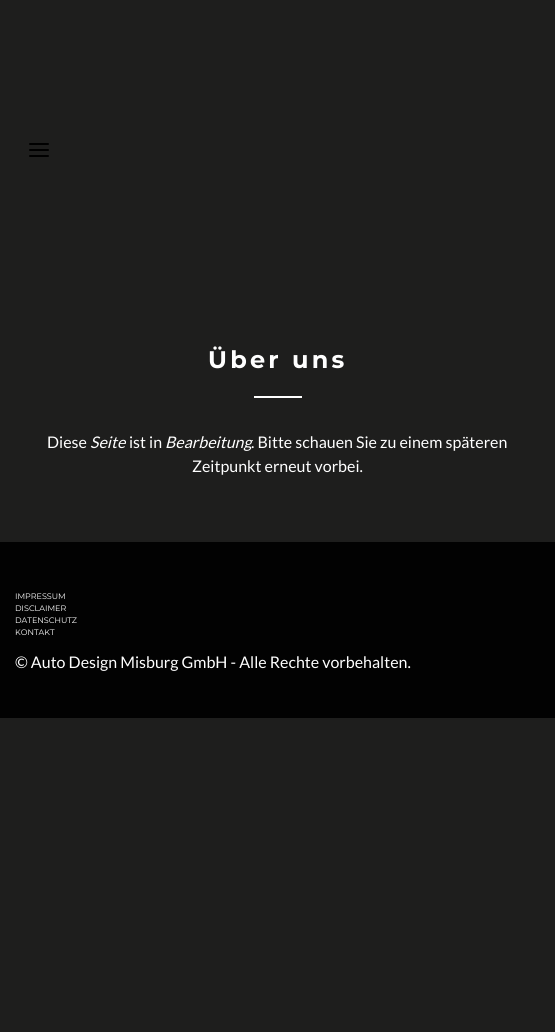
#include <cairo.h>
#include <math.h>
#include <stddef.h>

static cairo_t *ctx;

static void use_color(int r, int g, int b) {
    cairo_set_source_rgb(ctx, r / 255.0, g / 255.0, b / 255.0);
}

static void spaced_text(double x, double y, const char *s, double letter, double word) {
    cairo_move_to(ctx, x, y);
    while (*s) {
        char ch[5] = {0};
        int n = 0;
        do ch[n++] = *s++; while ((*s & 0xC0) == 0x80);
        cairo_show_text(ctx, ch);
        cairo_rel_move_to(ctx, letter + word * (*ch == ' '), 0);
    }
}

static void picture(const char *path, double x, double y, double w, double h) {
    cairo_surface_t *image = cairo_image_surface_create_from_png(path);
    cairo_save(ctx);
    cairo_set_source_surface(ctx, image, x, y);
    cairo_rectangle(ctx, x, y, w, h);
    cairo_fill(ctx);
    cairo_restore(ctx);
    cairo_surface_destroy(image);
}

int main(void) {
    cairo_surface_t *surface = cairo_image_surface_create(CAIRO_FORMAT_RGB24, 555, 1032);
    ctx = cairo_create(surface);
    cairo_font_options_t *options = cairo_font_options_create();
    cairo_font_options_set_hint_metrics(options, CAIRO_HINT_METRICS_OFF);
    cairo_font_options_set_hint_style(options, CAIRO_HINT_STYLE_NONE);
    cairo_set_font_options(ctx, options);
    cairo_set_miter_limit(ctx, 4);
    use_color(30, 30, 29);
    cairo_paint(ctx);
    picture("img1.png", 29, 143, 20, 14);
    cairo_select_font_face(ctx, "Montserrat", CAIRO_FONT_SLANT_NORMAL, CAIRO_FONT_WEIGHT_BOLD);
    cairo_set_font_size(ctx, 24);
    use_color(255, 255, 255);
    spaced_text(208, 368, "Über uns", 3.25, 0);
    cairo_rectangle(ctx, 254, 396, 48, 2);
    cairo_fill(ctx);
    cairo_select_font_face(ctx, "Lato", CAIRO_FONT_SLANT_NORMAL, CAIRO_FONT_WEIGHT_NORMAL);
    cairo_set_font_size(ctx, 16);
    cairo_move_to(ctx, 47, 448);
    cairo_show_text(ctx, "Diese");
    cairo_select_font_face(ctx, "Lato", CAIRO_FONT_SLANT_ITALIC, CAIRO_FONT_WEIGHT_NORMAL);
    cairo_move_to(ctx, 90, 448);
    cairo_show_text(ctx, "Seite");
    cairo_select_font_face(ctx, "Lato", CAIRO_FONT_SLANT_NORMAL, CAIRO_FONT_WEIGHT_NORMAL);
    cairo_move_to(ctx, 129, 448);
    cairo_show_text(ctx, "ist in");
    cairo_select_font_face(ctx, "Lato", CAIRO_FONT_SLANT_ITALIC, CAIRO_FONT_WEIGHT_NORMAL);
    cairo_move_to(ctx, 165, 448);
    cairo_show_text(ctx, "Bearbeitung");
    cairo_select_font_face(ctx, "Lato", CAIRO_FONT_SLANT_NORMAL, CAIRO_FONT_WEIGHT_NORMAL);
    cairo_move_to(ctx, 251, 448);
    cairo_show_text(ctx, ". Bitte schauen Sie zu einem späteren");
    cairo_move_to(ctx, 192, 472);
    cairo_show_text(ctx, "Zeitpunkt erneut vorbei.");
    use_color(2, 2, 2);
    cairo_rectangle(ctx, 0, 542, 555, 176);
    cairo_fill(ctx);
    cairo_select_font_face(ctx, "Montserrat", CAIRO_FONT_SLANT_NORMAL, CAIRO_FONT_WEIGHT_NORMAL);
    cairo_set_font_size(ctx, 8);
    use_color(255, 255, 255);
    cairo_move_to(ctx, 15, 599);
    cairo_show_text(ctx, "IMPRESSUM");
    cairo_move_to(ctx, 15, 611);
    cairo_show_text(ctx, "DISCLAIMER");
    cairo_move_to(ctx, 15, 623);
    cairo_show_text(ctx, "DATENSCHUTZ");
    cairo_move_to(ctx, 15, 635);
    cairo_show_text(ctx, "KONTAKT");
    cairo_select_font_face(ctx, "Lato", CAIRO_FONT_SLANT_NORMAL, CAIRO_FONT_WEIGHT_NORMAL);
    cairo_set_font_size(ctx, 16);
    cairo_move_to(ctx, 15, 668);
    cairo_show_text(ctx, "© Auto Design Misburg GmbH - Alle Rechte vorbehalten.");
    cairo_surface_write_to_png(surface, "result.png");
    cairo_font_options_destroy(options);
    cairo_destroy(ctx);
    cairo_surface_destroy(surface);
    return 0;
}
